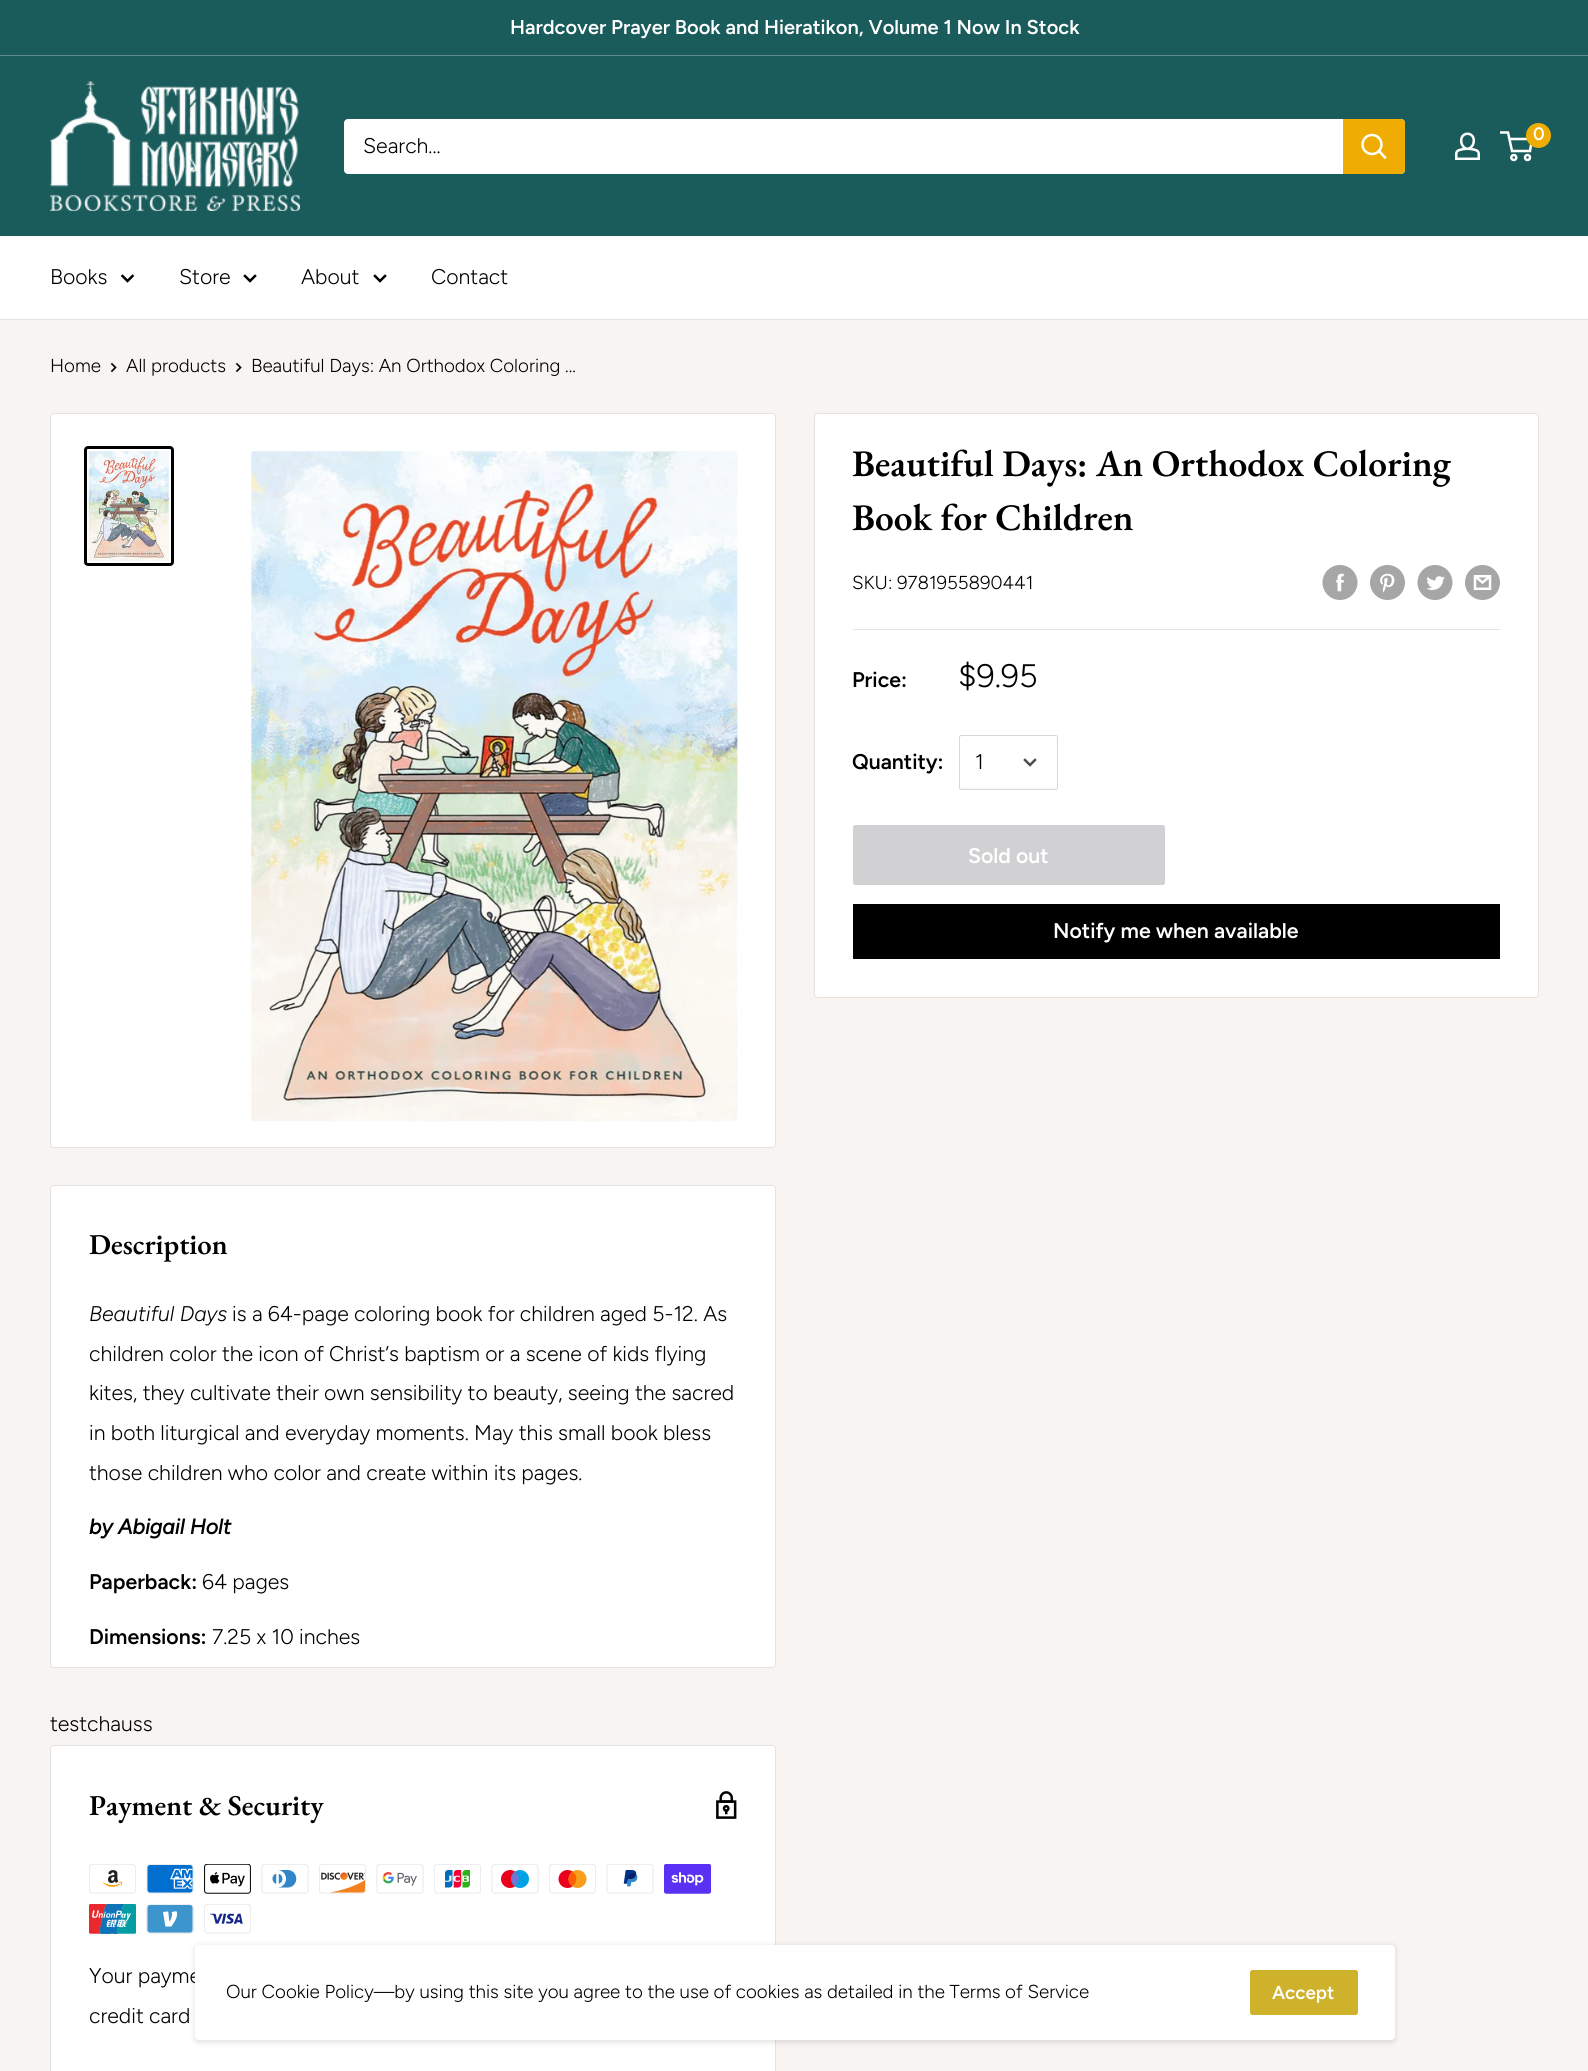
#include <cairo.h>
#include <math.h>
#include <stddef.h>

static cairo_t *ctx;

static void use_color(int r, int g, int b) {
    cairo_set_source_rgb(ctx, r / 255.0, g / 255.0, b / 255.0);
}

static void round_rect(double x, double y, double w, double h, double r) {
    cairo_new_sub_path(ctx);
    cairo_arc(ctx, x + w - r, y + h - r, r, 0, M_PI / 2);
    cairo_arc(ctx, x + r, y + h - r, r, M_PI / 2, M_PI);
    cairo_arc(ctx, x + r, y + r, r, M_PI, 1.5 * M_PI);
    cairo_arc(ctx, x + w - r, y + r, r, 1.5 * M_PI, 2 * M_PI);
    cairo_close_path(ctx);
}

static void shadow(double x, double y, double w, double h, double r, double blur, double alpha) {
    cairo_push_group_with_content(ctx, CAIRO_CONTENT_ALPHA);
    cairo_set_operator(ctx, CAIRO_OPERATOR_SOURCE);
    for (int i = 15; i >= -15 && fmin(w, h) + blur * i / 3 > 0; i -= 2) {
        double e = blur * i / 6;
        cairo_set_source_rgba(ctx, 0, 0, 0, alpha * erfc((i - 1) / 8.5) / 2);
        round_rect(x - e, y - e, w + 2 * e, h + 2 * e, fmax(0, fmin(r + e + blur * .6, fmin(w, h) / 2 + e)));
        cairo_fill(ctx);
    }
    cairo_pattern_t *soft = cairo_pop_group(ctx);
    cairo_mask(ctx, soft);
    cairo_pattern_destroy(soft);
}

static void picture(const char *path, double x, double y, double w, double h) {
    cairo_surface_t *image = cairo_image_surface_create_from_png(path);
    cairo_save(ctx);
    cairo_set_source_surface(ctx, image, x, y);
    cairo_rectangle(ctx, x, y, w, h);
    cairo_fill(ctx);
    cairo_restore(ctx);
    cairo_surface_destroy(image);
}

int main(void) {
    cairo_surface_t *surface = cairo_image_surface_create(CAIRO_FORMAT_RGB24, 1588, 2071);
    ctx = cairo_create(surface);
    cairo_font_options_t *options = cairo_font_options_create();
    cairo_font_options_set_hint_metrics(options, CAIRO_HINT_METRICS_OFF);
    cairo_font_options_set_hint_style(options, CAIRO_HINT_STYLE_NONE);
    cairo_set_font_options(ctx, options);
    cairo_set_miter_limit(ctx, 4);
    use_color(247, 244, 242);
    cairo_paint(ctx);
    use_color(26, 91, 91);
    cairo_rectangle(ctx, 0, 0, 1588, 55);
    cairo_fill(ctx);
    use_color(95, 140, 140);
    cairo_rectangle(ctx, 0, 55, 1588, 1);
    cairo_fill(ctx);
    cairo_select_font_face(ctx, "Figtree SemiBold", CAIRO_FONT_SLANT_NORMAL, CAIRO_FONT_WEIGHT_NORMAL);
    cairo_set_font_size(ctx, 20);
    use_color(255, 255, 255);
    cairo_move_to(ctx, 510, 34);
    cairo_show_text(ctx, "Hardcover Prayer Book and Hieratikon, Volume 1 Now In Stock");
    use_color(26, 91, 91);
    cairo_rectangle(ctx, 0, 56, 1588, 180);
    cairo_fill(ctx);
    picture("img1.png", 50, 81, 250, 130);
    picture("img2.png", 1455, 132, 25, 28);
    cairo_arc(ctx, 1513.8, 157.5, 2.5, 0, 2 * M_PI);
    use_color(255, 255, 255);
    cairo_set_line_width(ctx, 2.5);
    cairo_stroke(ctx);
    cairo_arc(ctx, 1527.5, 157.5, 2.5, 0, 2 * M_PI);
    cairo_stroke(ctx);
    cairo_new_path(ctx);
    cairo_move_to(ctx, 1509, 139);
    cairo_line_to(ctx, 1532, 139);
    cairo_line_to(ctx, 1530, 151);
    cairo_line_to(ctx, 1512, 151);
    cairo_line_to(ctx, 1508, 132.5);
    cairo_line_to(ctx, 1500, 132.5);
    cairo_stroke(ctx);
    use_color(239, 173, 4);
    cairo_arc(ctx, 1538.5, 135.5, 12.5, 0, 2 * M_PI);
    cairo_fill(ctx);
    cairo_set_font_size(ctx, 18);
    use_color(255, 255, 255);
    cairo_move_to(ctx, 1533, 140);
    cairo_show_text(ctx, "0");
    round_rect(344, 119, 1061, 55, 4);
    cairo_fill(ctx);
    cairo_select_font_face(ctx, "Figtree Light", CAIRO_FONT_SLANT_NORMAL, CAIRO_FONT_WEIGHT_NORMAL);
    cairo_set_font_size(ctx, 21.25);
    use_color(0, 0, 0);
    cairo_move_to(ctx, 363, 153);
    cairo_show_text(ctx, "Search...");
    use_color(239, 173, 4);
    cairo_new_path(ctx);
    cairo_move_to(ctx, 1343, 119);
    cairo_line_to(ctx, 1401, 119);
    cairo_curve_to(ctx, 1403, 119, 1405, 121, 1405, 123);
    cairo_line_to(ctx, 1405, 170);
    cairo_curve_to(ctx, 1405, 172, 1403, 174, 1401, 174);
    cairo_line_to(ctx, 1343, 174);
    cairo_close_path(ctx);
    cairo_fill(ctx);
    cairo_new_path(ctx);
    cairo_move_to(ctx, 1385, 157.5);
    cairo_line_to(ctx, 1379, 151);
    use_color(255, 255, 255);
    cairo_set_line_cap(ctx, CAIRO_LINE_CAP_SQUARE);
    cairo_stroke(ctx);
    cairo_arc(ctx, 1372, 144.5, 9.5, 0, 2 * M_PI);
    cairo_set_line_cap(ctx, CAIRO_LINE_CAP_BUTT);
    cairo_stroke(ctx);
    cairo_rectangle(ctx, 0, 236, 1588, 83);
    cairo_fill(ctx);
    use_color(231, 226, 222);
    cairo_rectangle(ctx, 0, 319, 1588, 1);
    cairo_fill(ctx);
    use_color(0, 0, 0);
    cairo_move_to(ctx, 50, 284);
    cairo_show_text(ctx, "Books");
    cairo_new_path(ctx);
    cairo_move_to(ctx, 132.5, 276);
    cairo_line_to(ctx, 127.5, 281);
    cairo_line_to(ctx, 122.5, 276);
    cairo_set_line_cap(ctx, CAIRO_LINE_CAP_SQUARE);
    cairo_stroke(ctx);
    cairo_move_to(ctx, 179, 284);
    cairo_show_text(ctx, "Store");
    cairo_new_path(ctx);
    cairo_move_to(ctx, 255, 276);
    cairo_line_to(ctx, 250, 281);
    cairo_line_to(ctx, 245, 276);
    cairo_stroke(ctx);
    cairo_move_to(ctx, 301, 284);
    cairo_show_text(ctx, "About");
    cairo_new_path(ctx);
    cairo_move_to(ctx, 385, 276);
    cairo_line_to(ctx, 380, 281);
    cairo_line_to(ctx, 375, 276);
    cairo_stroke(ctx);
    cairo_move_to(ctx, 431, 284);
    cairo_show_text(ctx, "Contact");
    cairo_set_font_size(ctx, 18.75);
    cairo_move_to(ctx, 50, 372);
    cairo_show_text(ctx, "Home");
    cairo_new_path(ctx);
    cairo_move_to(ctx, 112, 364);
    cairo_line_to(ctx, 115.5, 367.5);
    cairo_line_to(ctx, 112, 371);
    cairo_set_line_width(ctx, 1.7);
    cairo_stroke(ctx);
    cairo_move_to(ctx, 126, 372);
    cairo_show_text(ctx, "All products");
    cairo_new_path(ctx);
    cairo_move_to(ctx, 237, 364);
    cairo_line_to(ctx, 240.5, 367.5);
    cairo_line_to(ctx, 237, 371);
    cairo_stroke(ctx);
    cairo_move_to(ctx, 251, 372);
    cairo_show_text(ctx, "Beautiful Days: An Orthodox Coloring ...");
    use_color(255, 255, 255);
    round_rect(50.5, 413.5, 725, 734, 3.5);
    cairo_fill_preserve(ctx);
    use_color(231, 226, 222);
    cairo_set_line_width(ctx, 1);
    cairo_set_line_cap(ctx, CAIRO_LINE_CAP_BUTT);
    cairo_stroke(ctx);
    round_rect(85.5, 447.5, 87, 117, 2.5);
    use_color(0, 0, 0);
    cairo_set_line_width(ctx, 3);
    cairo_stroke(ctx);
    picture("img3.png", 88, 451, 81, 111);
    picture("img4.png", 251, 451, 487, 671);
    use_color(255, 255, 255);
    round_rect(814.5, 413.5, 724, 584, 3.5);
    cairo_fill_preserve(ctx);
    use_color(231, 226, 222);
    cairo_set_line_width(ctx, 1);
    cairo_stroke(ctx);
    cairo_select_font_face(ctx, "EB Garamond SemiBold", CAIRO_FONT_SLANT_NORMAL, CAIRO_FONT_WEIGHT_NORMAL);
    cairo_set_font_size(ctx, 37.5);
    use_color(0, 0, 0);
    cairo_move_to(ctx, 852, 476);
    cairo_show_text(ctx, "Beautiful Days: An Orthodox Coloring");
    cairo_move_to(ctx, 852, 530);
    cairo_show_text(ctx, "Book for Children");
    cairo_select_font_face(ctx, "Figtree Light", CAIRO_FONT_SLANT_NORMAL, CAIRO_FONT_WEIGHT_NORMAL);
    cairo_set_font_size(ctx, 18.75);
    cairo_move_to(ctx, 852, 589);
    cairo_show_text(ctx, "SKU: 9781955890441");
    picture("img5.png", 1322, 565, 36, 35);
    picture("img6.png", 1370, 565, 35, 35);
    picture("img7.png", 1417, 565, 36, 35);
    picture("img8.png", 1465, 565, 35, 35);
    use_color(231, 226, 222);
    cairo_rectangle(ctx, 853, 629, 647, 1);
    cairo_fill(ctx);
    cairo_select_font_face(ctx, "Figtree SemiBold", CAIRO_FONT_SLANT_NORMAL, CAIRO_FONT_WEIGHT_NORMAL);
    cairo_set_font_size(ctx, 21.25);
    use_color(0, 0, 0);
    cairo_move_to(ctx, 852, 687);
    cairo_show_text(ctx, "Price:");
    cairo_select_font_face(ctx, "Figtree Light", CAIRO_FONT_SLANT_NORMAL, CAIRO_FONT_WEIGHT_NORMAL);
    cairo_set_font_size(ctx, 32.5);
    cairo_move_to(ctx, 958, 687);
    cairo_show_text(ctx, "$9.95");
    cairo_select_font_face(ctx, "Figtree SemiBold", CAIRO_FONT_SLANT_NORMAL, CAIRO_FONT_WEIGHT_NORMAL);
    cairo_set_font_size(ctx, 21.25);
    cairo_move_to(ctx, 852, 769);
    cairo_show_text(ctx, "Quantity:");
    use_color(248, 246, 245);
    cairo_new_path(ctx);
    cairo_move_to(ctx, 960, 787);
    cairo_line_to(ctx, 960, 789);
    cairo_line_to(ctx, 1055, 789);
    cairo_line_to(ctx, 1056, 787);
    cairo_line_to(ctx, 1055, 788);
    cairo_line_to(ctx, 965, 788);
    cairo_curve_to(ctx, 964, 788, 961, 789, 960, 787);
    cairo_close_path(ctx);
    cairo_fill(ctx);
    round_rect(959.5, 735.5, 98, 54, 2);
    use_color(220, 213, 207);
    cairo_stroke(ctx);
    cairo_select_font_face(ctx, "Figtree Light", CAIRO_FONT_SLANT_NORMAL, CAIRO_FONT_WEIGHT_NORMAL);
    use_color(0, 0, 0);
    cairo_move_to(ctx, 975, 769);
    cairo_show_text(ctx, "1");
    cairo_new_path(ctx);
    cairo_move_to(ctx, 1035, 760);
    cairo_line_to(ctx, 1030, 765);
    cairo_line_to(ctx, 1025, 760);
    use_color(77, 77, 77);
    cairo_set_line_width(ctx, 2.5);
    cairo_set_line_cap(ctx, CAIRO_LINE_CAP_SQUARE);
    cairo_stroke(ctx);
    use_color(209, 209, 212);
    round_rect(853.5, 825.5, 311, 59, 2);
    cairo_fill_preserve(ctx);
    cairo_set_line_width(ctx, 1);
    cairo_set_line_cap(ctx, CAIRO_LINE_CAP_BUTT);
    cairo_stroke(ctx);
    cairo_select_font_face(ctx, "Figtree SemiBold", CAIRO_FONT_SLANT_NORMAL, CAIRO_FONT_WEIGHT_NORMAL);
    use_color(255, 255, 255);
    cairo_move_to(ctx, 968, 863);
    cairo_show_text(ctx, "Sold out");
    use_color(0, 0, 0);
    cairo_rectangle(ctx, 853, 904, 647, 55);
    cairo_fill(ctx);
    use_color(255, 255, 255);
    cairo_move_to(ctx, 1053, 938);
    cairo_show_text(ctx, "Notify me when available");
    round_rect(50.5, 1185.5, 725, 482, 3.5);
    cairo_fill_preserve(ctx);
    use_color(231, 226, 222);
    cairo_stroke(ctx);
    cairo_select_font_face(ctx, "EB Garamond SemiBold", CAIRO_FONT_SLANT_NORMAL, CAIRO_FONT_WEIGHT_NORMAL);
    cairo_set_font_size(ctx, 28.75);
    use_color(0, 0, 0);
    cairo_move_to(ctx, 89, 1254);
    cairo_show_text(ctx, "Description");
    cairo_select_font_face(ctx, "Figtree Light", CAIRO_FONT_SLANT_ITALIC, CAIRO_FONT_WEIGHT_NORMAL);
    cairo_set_font_size(ctx, 21.25);
    cairo_move_to(ctx, 89, 1321);
    cairo_show_text(ctx, "Beautiful Days");
    cairo_select_font_face(ctx, "Figtree Light", CAIRO_FONT_SLANT_NORMAL, CAIRO_FONT_WEIGHT_NORMAL);
    cairo_move_to(ctx, 232, 1321);
    cairo_show_text(ctx, "is a 64-page coloring book for children aged 5-12. As");
    cairo_move_to(ctx, 89, 1361);
    cairo_show_text(ctx, "children color the icon of Christ’s baptism or a scene of kids flying");
    cairo_move_to(ctx, 89, 1400);
    cairo_show_text(ctx, "kites, they cultivate their own sensibility to beauty, seeing the sacred");
    cairo_move_to(ctx, 89, 1440);
    cairo_show_text(ctx, "in both liturgical and everyday moments. May this small book bless");
    cairo_move_to(ctx, 89, 1480);
    cairo_show_text(ctx, "those children who color and create within its pages.");
    cairo_select_font_face(ctx, "Figtree", CAIRO_FONT_SLANT_ITALIC, CAIRO_FONT_WEIGHT_BOLD);
    cairo_move_to(ctx, 89, 1534);
    cairo_show_text(ctx, "by Abigail Holt");
    cairo_select_font_face(ctx, "Figtree SemiBold", CAIRO_FONT_SLANT_NORMAL, CAIRO_FONT_WEIGHT_NORMAL);
    cairo_move_to(ctx, 89, 1589);
    cairo_show_text(ctx, "Paperback:");
    cairo_select_font_face(ctx, "Figtree Light", CAIRO_FONT_SLANT_NORMAL, CAIRO_FONT_WEIGHT_NORMAL);
    cairo_move_to(ctx, 202, 1589);
    cairo_show_text(ctx, "64 pages");
    cairo_select_font_face(ctx, "Figtree SemiBold", CAIRO_FONT_SLANT_NORMAL, CAIRO_FONT_WEIGHT_NORMAL);
    cairo_move_to(ctx, 89, 1644);
    cairo_show_text(ctx, "Dimensions:");
    cairo_select_font_face(ctx, "Figtree Light", CAIRO_FONT_SLANT_NORMAL, CAIRO_FONT_WEIGHT_NORMAL);
    cairo_move_to(ctx, 212, 1644);
    cairo_show_text(ctx, "7.25 x 10 inches");
    cairo_move_to(ctx, 50, 1731);
    cairo_show_text(ctx, "testchauss");
    use_color(255, 255, 255);
    round_rect(50.5, 1745.5, 725, 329, 3.5);
    cairo_fill_preserve(ctx);
    use_color(231, 226, 222);
    cairo_stroke(ctx);
    cairo_select_font_face(ctx, "EB Garamond SemiBold", CAIRO_FONT_SLANT_NORMAL, CAIRO_FONT_WEIGHT_NORMAL);
    cairo_set_font_size(ctx, 28.75);
    use_color(0, 0, 0);
    cairo_move_to(ctx, 89, 1815);
    cairo_show_text(ctx, "Payment & Security");
    picture("img9.png", 716, 1791, 21, 28);
    picture("img10.png", 89, 1864, 47, 30);
    picture("img11.png", 146, 1864, 48, 30);
    picture("img12.png", 204, 1864, 47, 30);
    picture("img13.png", 261, 1864, 48, 30);
    picture("img14.png", 319, 1864, 47, 30);
    picture("img15.png", 376, 1864, 48, 30);
    picture("img16.png", 434, 1864, 47, 30);
    picture("img17.png", 491, 1864, 48, 30);
    picture("img18.png", 549, 1864, 47, 30);
    picture("img19.png", 606, 1864, 48, 30);
    picture("img20.png", 664, 1864, 47, 30);
    picture("img21.png", 89, 1904, 47, 30);
    picture("img22.png", 146, 1904, 48, 30);
    picture("img23.png", 204, 1904, 47, 30);
    cairo_select_font_face(ctx, "Figtree Light", CAIRO_FONT_SLANT_NORMAL, CAIRO_FONT_WEIGHT_NORMAL);
    cairo_set_font_size(ctx, 21.25);
    cairo_move_to(ctx, 89, 1983);
    cairo_show_text(ctx, "Your payme");
    cairo_move_to(ctx, 89, 2023);
    cairo_show_text(ctx, "credit card");
    use_color(0, 0, 0);
    shadow(194, 1945, 1202, 98, 5, 2.5, 0.1);
    use_color(255, 255, 255);
    round_rect(195, 1945, 1200, 95, 4);
    cairo_fill(ctx);
    cairo_set_font_size(ctx, 18.75);
    use_color(0, 0, 0);
    cairo_move_to(ctx, 226, 1998);
    cairo_show_text(ctx, "Our Cookie Policy—by using this site you agree to the use of cookies as detailed in the Terms of Service");
    use_color(207, 178, 44);
    round_rect(1250, 1970, 108, 45, 2.5);
    cairo_fill(ctx);
    cairo_select_font_face(ctx, "Figtree SemiBold", CAIRO_FONT_SLANT_NORMAL, CAIRO_FONT_WEIGHT_NORMAL);
    use_color(255, 255, 255);
    cairo_move_to(ctx, 1272, 1999);
    cairo_show_text(ctx, "Accept");
    cairo_surface_write_to_png(surface, "result.png");
    cairo_font_options_destroy(options);
    cairo_destroy(ctx);
    cairo_surface_destroy(surface);
    return 0;
}
